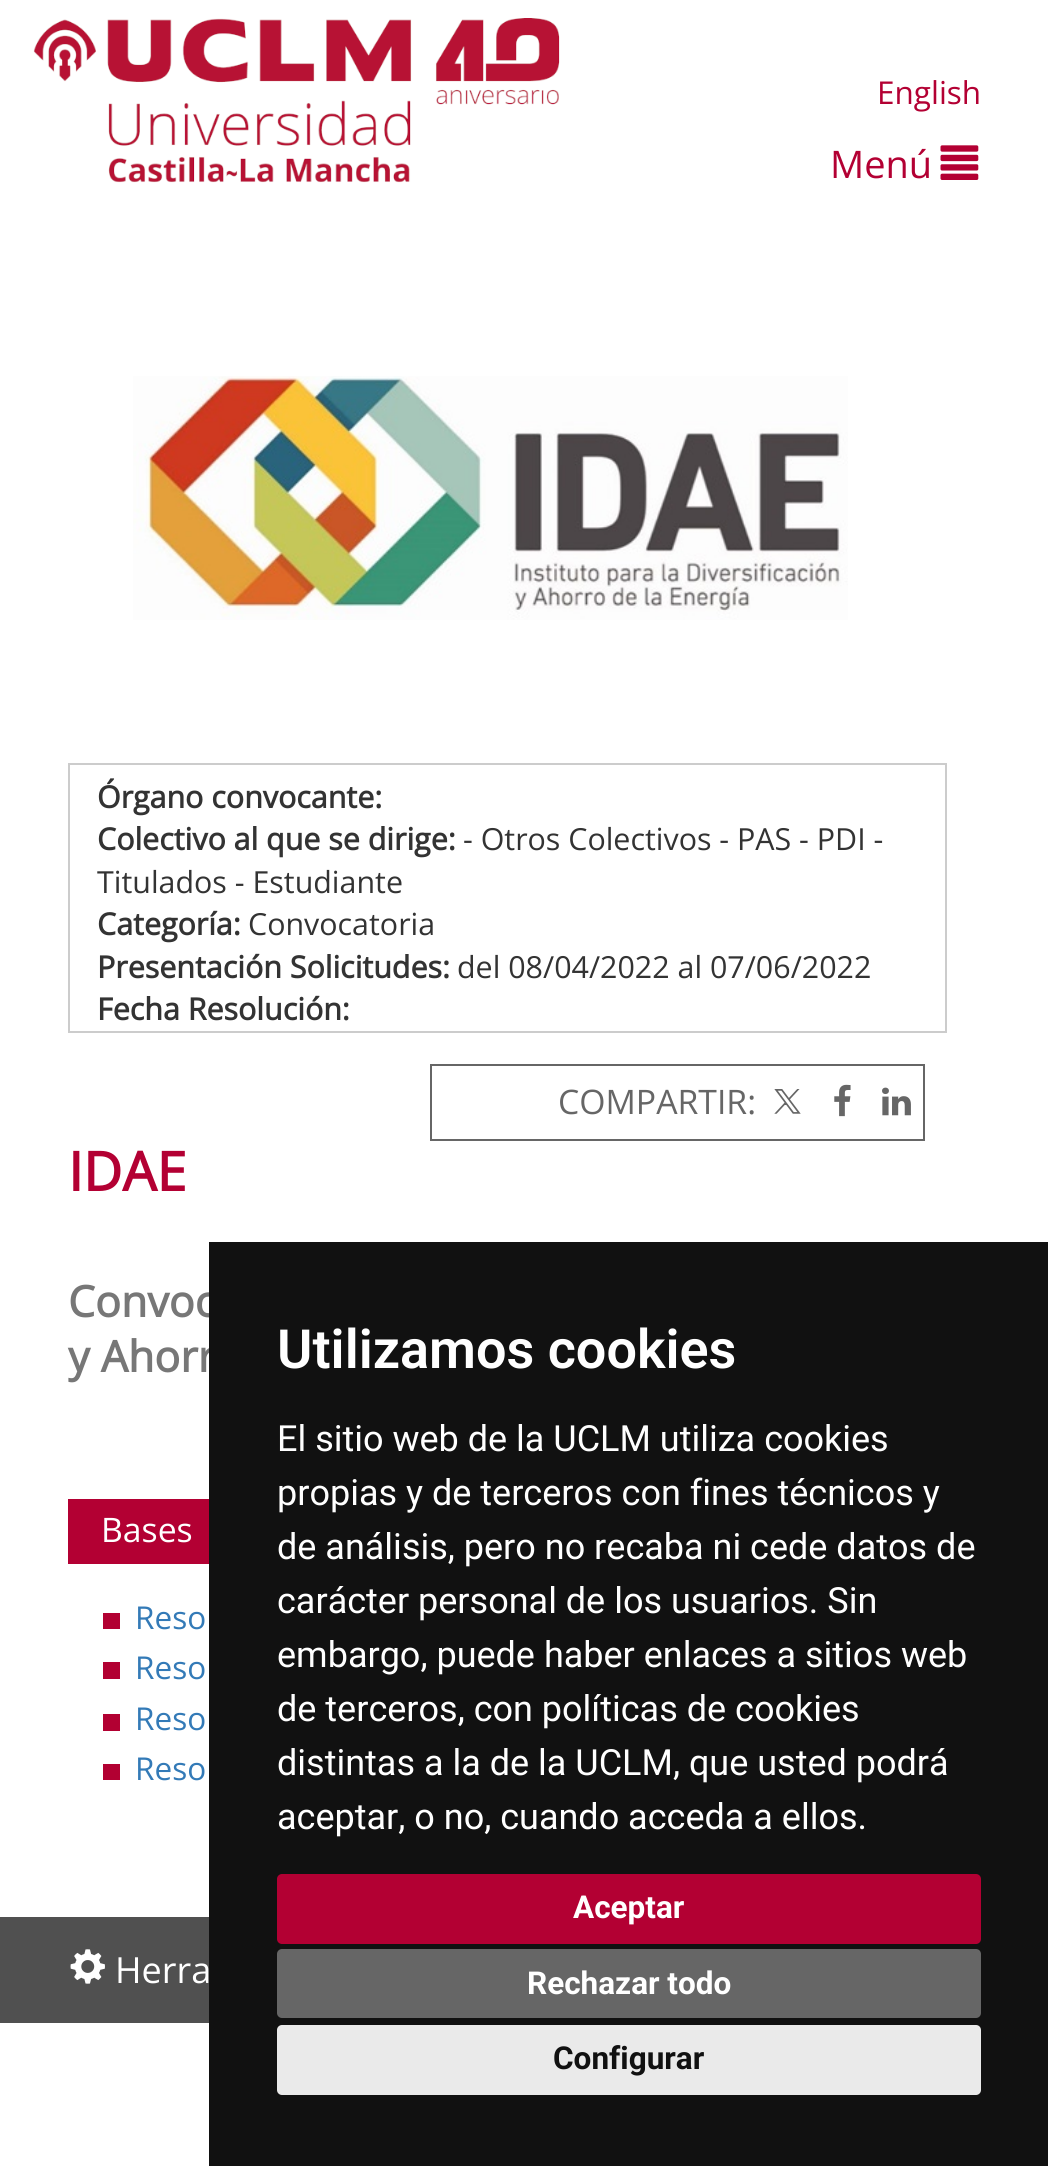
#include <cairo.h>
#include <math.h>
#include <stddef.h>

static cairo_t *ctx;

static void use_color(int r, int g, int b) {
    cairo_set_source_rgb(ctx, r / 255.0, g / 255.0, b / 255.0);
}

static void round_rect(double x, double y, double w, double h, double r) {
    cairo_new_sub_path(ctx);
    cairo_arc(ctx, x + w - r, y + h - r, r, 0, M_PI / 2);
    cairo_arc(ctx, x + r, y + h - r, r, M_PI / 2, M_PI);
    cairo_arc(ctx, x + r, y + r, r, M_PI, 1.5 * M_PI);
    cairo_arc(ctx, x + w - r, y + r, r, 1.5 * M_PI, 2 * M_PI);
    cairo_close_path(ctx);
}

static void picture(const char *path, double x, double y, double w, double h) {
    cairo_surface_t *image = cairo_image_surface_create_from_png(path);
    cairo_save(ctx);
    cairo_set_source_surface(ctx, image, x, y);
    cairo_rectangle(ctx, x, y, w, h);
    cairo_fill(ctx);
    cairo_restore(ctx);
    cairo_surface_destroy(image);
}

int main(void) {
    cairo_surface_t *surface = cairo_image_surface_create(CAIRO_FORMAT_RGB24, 1048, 2166);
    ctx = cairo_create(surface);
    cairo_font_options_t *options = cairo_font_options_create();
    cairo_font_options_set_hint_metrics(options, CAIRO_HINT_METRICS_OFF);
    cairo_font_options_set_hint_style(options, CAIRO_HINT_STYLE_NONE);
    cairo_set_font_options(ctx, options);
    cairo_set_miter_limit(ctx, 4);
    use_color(255, 255, 255);
    cairo_paint(ctx);
    picture("img1.png", 33, 18, 527, 165);
    cairo_select_font_face(ctx, "Open Sans", CAIRO_FONT_SLANT_NORMAL, CAIRO_FONT_WEIGHT_NORMAL);
    cairo_set_font_size(ctx, 31.5);
    use_color(179, 0, 51);
    cairo_move_to(ctx, 877, 104);
    cairo_show_text(ctx, "English");
    cairo_set_font_size(ctx, 38);
    cairo_move_to(ctx, 830, 178);
    cairo_show_text(ctx, "Menú");
    picture("img2.png", 940, 145, 39, 35);
    picture("img3.png", 133, 376, 715, 244);
    cairo_rectangle(ctx, 69, 764, 877, 268);
    use_color(204, 204, 204);
    cairo_stroke(ctx);
    cairo_select_font_face(ctx, "Open Sans", CAIRO_FONT_SLANT_NORMAL, CAIRO_FONT_WEIGHT_BOLD);
    cairo_set_font_size(ctx, 30.4);
    use_color(51, 51, 51);
    cairo_move_to(ctx, 97, 808);
    cairo_show_text(ctx, "Órgano convocante:");
    cairo_move_to(ctx, 97, 850);
    cairo_show_text(ctx, "Colectivo al que se dirige:");
    cairo_select_font_face(ctx, "Open Sans", CAIRO_FONT_SLANT_NORMAL, CAIRO_FONT_WEIGHT_NORMAL);
    cairo_move_to(ctx, 463, 850);
    cairo_show_text(ctx, "- Otros Colectivos - PAS - PDI -");
    cairo_move_to(ctx, 97, 893);
    cairo_show_text(ctx, "Titulados - Estudiante");
    cairo_select_font_face(ctx, "Open Sans", CAIRO_FONT_SLANT_NORMAL, CAIRO_FONT_WEIGHT_BOLD);
    cairo_move_to(ctx, 97, 935);
    cairo_show_text(ctx, "Categoría:");
    cairo_select_font_face(ctx, "Open Sans", CAIRO_FONT_SLANT_NORMAL, CAIRO_FONT_WEIGHT_NORMAL);
    cairo_move_to(ctx, 248, 935);
    cairo_show_text(ctx, "Convocatoria");
    cairo_select_font_face(ctx, "Open Sans", CAIRO_FONT_SLANT_NORMAL, CAIRO_FONT_WEIGHT_BOLD);
    cairo_move_to(ctx, 97, 978);
    cairo_show_text(ctx, "Presentación Solicitudes:");
    cairo_select_font_face(ctx, "Open Sans", CAIRO_FONT_SLANT_NORMAL, CAIRO_FONT_WEIGHT_NORMAL);
    cairo_move_to(ctx, 457, 978);
    cairo_show_text(ctx, "del 08/04/2022 al 07/06/2022");
    cairo_select_font_face(ctx, "Open Sans", CAIRO_FONT_SLANT_NORMAL, CAIRO_FONT_WEIGHT_BOLD);
    cairo_move_to(ctx, 97, 1020);
    cairo_show_text(ctx, "Fecha Resolución:");
    cairo_rectangle(ctx, 431, 1065, 493, 75);
    use_color(102, 102, 102);
    cairo_stroke(ctx);
    cairo_select_font_face(ctx, "Open Sans", CAIRO_FONT_SLANT_NORMAL, CAIRO_FONT_WEIGHT_NORMAL);
    cairo_set_font_size(ctx, 33.75);
    cairo_move_to(ctx, 558, 1114);
    cairo_show_text(ctx, "COMPARTIR:");
    picture("img4.png", 774, 1089, 27, 25);
    picture("img5.png", 834, 1084, 17, 33);
    picture("img6.png", 882, 1087, 29, 29);
    cairo_select_font_face(ctx, "Open Sans", CAIRO_FONT_SLANT_NORMAL, CAIRO_FONT_WEIGHT_BOLD);
    cairo_set_font_size(ctx, 54);
    use_color(179, 0, 51);
    cairo_move_to(ctx, 68, 1191);
    cairo_show_text(ctx, "IDAE");
    cairo_set_font_size(ctx, 43);
    use_color(119, 119, 119);
    cairo_move_to(ctx, 68, 1317);
    cairo_show_text(ctx, "Convoc");
    cairo_move_to(ctx, 68, 1372);
    cairo_show_text(ctx, "y Ahorr");
    use_color(179, 0, 51);
    cairo_rectangle(ctx, 68, 1499, 141, 65);
    cairo_fill(ctx);
    cairo_select_font_face(ctx, "Open Sans", CAIRO_FONT_SLANT_NORMAL, CAIRO_FONT_WEIGHT_NORMAL);
    cairo_set_font_size(ctx, 33.75);
    use_color(255, 255, 255);
    cairo_move_to(ctx, 101, 1542);
    cairo_show_text(ctx, "Bases");
    use_color(178, 0, 50);
    cairo_rectangle(ctx, 103, 1613, 17, 16);
    cairo_fill(ctx);
    cairo_set_font_size(ctx, 31.5);
    use_color(51, 122, 183);
    cairo_move_to(ctx, 135, 1629);
    cairo_show_text(ctx, "Reso");
    use_color(178, 0, 50);
    cairo_rectangle(ctx, 103, 1662, 17, 17);
    cairo_fill(ctx);
    use_color(51, 122, 183);
    cairo_move_to(ctx, 135, 1679);
    cairo_show_text(ctx, "Reso");
    use_color(178, 0, 50);
    cairo_rectangle(ctx, 103, 1714, 17, 17);
    cairo_fill(ctx);
    use_color(51, 122, 183);
    cairo_move_to(ctx, 135, 1730);
    cairo_show_text(ctx, "Reso");
    use_color(178, 0, 50);
    cairo_rectangle(ctx, 103, 1764, 17, 16);
    cairo_fill(ctx);
    use_color(51, 122, 183);
    cairo_move_to(ctx, 135, 1780);
    cairo_show_text(ctx, "Reso");
    use_color(80, 80, 80);
    cairo_rectangle(ctx, 0, 1917, 209, 106);
    cairo_fill(ctx);
    picture("img7.png", 70, 1949, 35, 35);
    cairo_set_font_size(ctx, 36);
    use_color(255, 255, 255);
    cairo_move_to(ctx, 115, 1983);
    cairo_show_text(ctx, "Herra");
    use_color(17, 17, 17);
    cairo_rectangle(ctx, 209, 1242, 839, 924);
    cairo_fill(ctx);
    cairo_select_font_face(ctx, "Roboto SemiBold", CAIRO_FONT_SLANT_NORMAL, CAIRO_FONT_WEIGHT_NORMAL);
    cairo_set_font_size(ctx, 54);
    use_color(255, 255, 255);
    cairo_move_to(ctx, 277, 1368);
    cairo_show_text(ctx, "Utilizamos cookies");
    cairo_select_font_face(ctx, "Roboto", CAIRO_FONT_SLANT_NORMAL, CAIRO_FONT_WEIGHT_NORMAL);
    cairo_set_font_size(ctx, 36);
    cairo_move_to(ctx, 277, 1451);
    cairo_show_text(ctx, "El sitio web de la UCLM utiliza cookies");
    cairo_move_to(ctx, 277, 1505);
    cairo_show_text(ctx, "propias y de terceros con fines técnicos y");
    cairo_move_to(ctx, 277, 1559);
    cairo_show_text(ctx, "de análisis, pero no recaba ni cede datos de");
    cairo_move_to(ctx, 277, 1613);
    cairo_show_text(ctx, "carácter personal de los usuarios. Sin");
    cairo_move_to(ctx, 277, 1667);
    cairo_show_text(ctx, "embargo, puede haber enlaces a sitios web");
    cairo_move_to(ctx, 277, 1721);
    cairo_show_text(ctx, "de terceros, con políticas de cookies");
    cairo_move_to(ctx, 277, 1775);
    cairo_show_text(ctx, "distintas a la de la UCLM, que usted podrá");
    cairo_move_to(ctx, 277, 1829);
    cairo_show_text(ctx, "aceptar, o no, cuando acceda a ellos.");
    use_color(179, 0, 51);
    round_rect(277, 1874, 704, 70, 5);
    cairo_fill(ctx);
    cairo_select_font_face(ctx, "Roboto", CAIRO_FONT_SLANT_NORMAL, CAIRO_FONT_WEIGHT_BOLD);
    cairo_set_font_size(ctx, 31.5);
    use_color(255, 255, 255);
    cairo_move_to(ctx, 573, 1918);
    cairo_show_text(ctx, "Aceptar");
    use_color(102, 102, 102);
    round_rect(277, 1949, 704, 69, 5);
    cairo_fill(ctx);
    use_color(255, 255, 255);
    cairo_move_to(ctx, 527, 1994);
    cairo_show_text(ctx, "Rechazar todo");
    use_color(234, 234, 234);
    round_rect(277, 2025, 704, 70, 5);
    cairo_fill(ctx);
    use_color(17, 17, 17);
    cairo_move_to(ctx, 553, 2069);
    cairo_show_text(ctx, "Configurar");
    cairo_surface_write_to_png(surface, "result.png");
    cairo_font_options_destroy(options);
    cairo_destroy(ctx);
    cairo_surface_destroy(surface);
    return 0;
}
